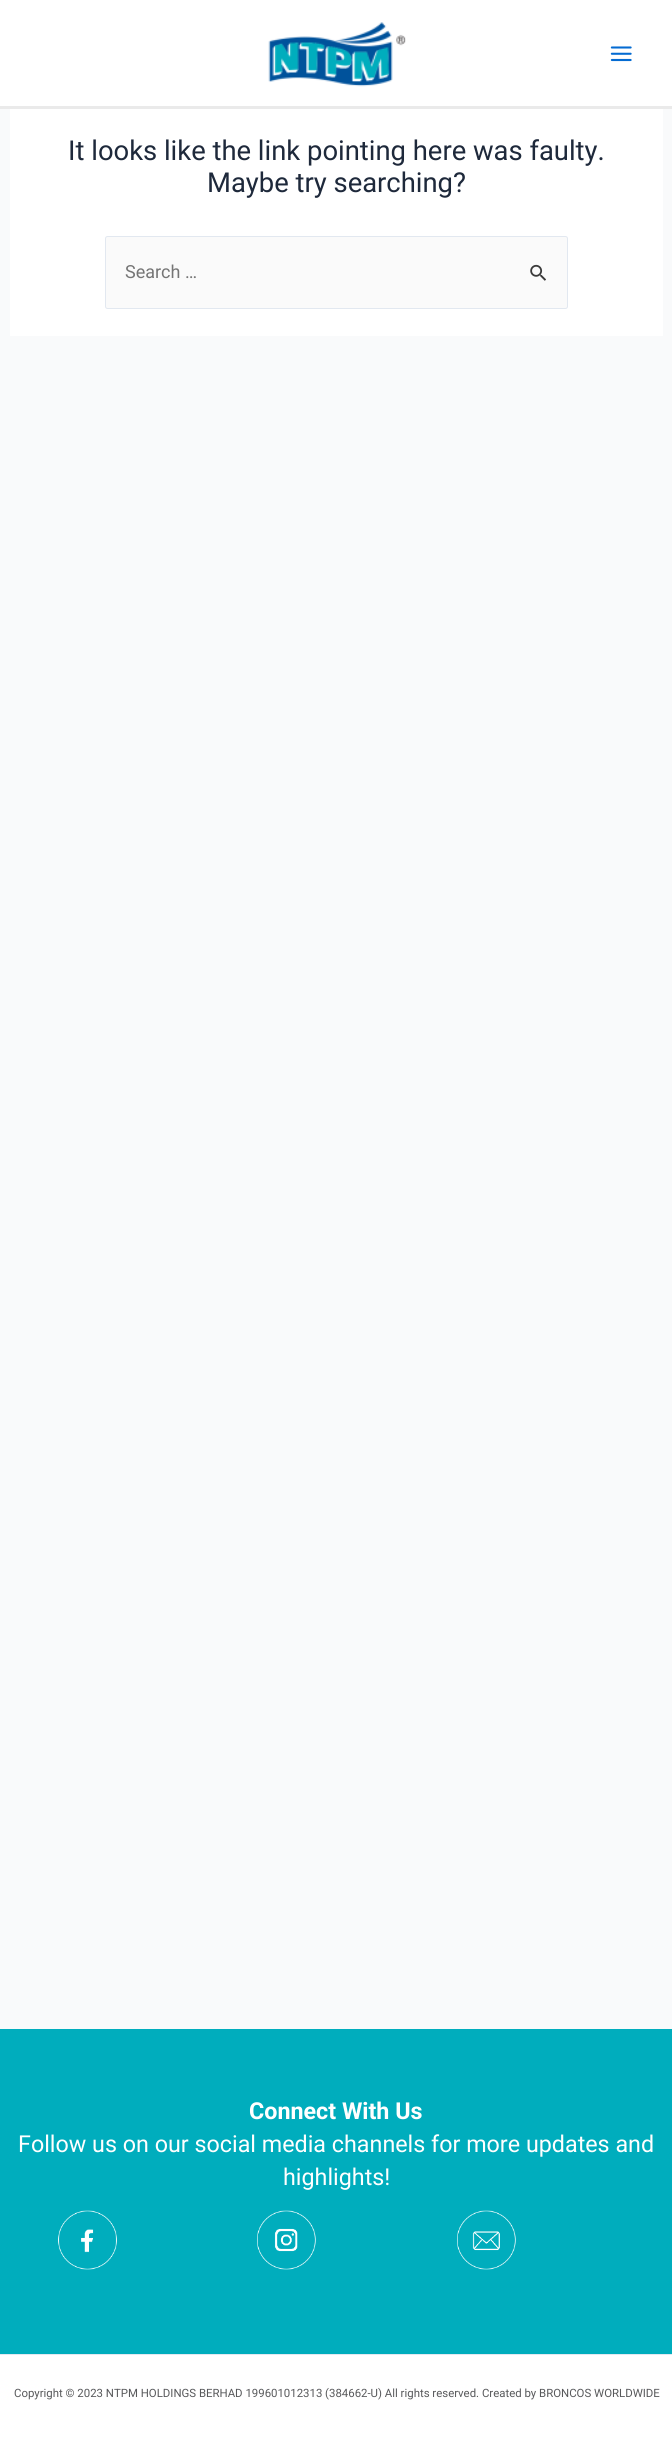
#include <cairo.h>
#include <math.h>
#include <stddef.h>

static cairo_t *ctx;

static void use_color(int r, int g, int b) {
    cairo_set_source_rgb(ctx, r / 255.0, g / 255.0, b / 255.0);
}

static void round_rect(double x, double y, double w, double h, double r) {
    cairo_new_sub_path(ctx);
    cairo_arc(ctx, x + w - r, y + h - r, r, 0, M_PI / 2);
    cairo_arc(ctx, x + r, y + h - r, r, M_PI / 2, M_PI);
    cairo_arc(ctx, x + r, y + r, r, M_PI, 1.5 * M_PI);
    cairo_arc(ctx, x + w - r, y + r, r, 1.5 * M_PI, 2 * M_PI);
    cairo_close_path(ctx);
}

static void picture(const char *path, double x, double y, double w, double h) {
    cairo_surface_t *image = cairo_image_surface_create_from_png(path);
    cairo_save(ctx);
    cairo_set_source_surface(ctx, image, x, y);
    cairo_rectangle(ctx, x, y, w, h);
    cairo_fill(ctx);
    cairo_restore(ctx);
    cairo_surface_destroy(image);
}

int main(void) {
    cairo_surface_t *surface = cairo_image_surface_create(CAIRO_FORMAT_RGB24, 672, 2446);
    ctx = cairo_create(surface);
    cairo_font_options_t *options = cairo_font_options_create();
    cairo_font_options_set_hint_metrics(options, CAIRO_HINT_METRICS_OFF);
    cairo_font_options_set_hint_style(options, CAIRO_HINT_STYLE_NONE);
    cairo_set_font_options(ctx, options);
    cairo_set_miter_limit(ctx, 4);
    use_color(249, 250, 251);
    cairo_paint(ctx);
    use_color(255, 255, 255);
    cairo_rectangle(ctx, 0, 0, 672, 106);
    cairo_fill(ctx);
    use_color(234, 234, 234);
    cairo_rectangle(ctx, 0, 106, 672, 3);
    cairo_fill(ctx);
    picture("img1.png", 268, 22, 138, 65);
    picture("img2.png", 610, 46, 22, 16);
    use_color(255, 255, 255);
    cairo_rectangle(ctx, 10, 109, 653, 227);
    cairo_fill(ctx);
    cairo_select_font_face(ctx, "Roboto", CAIRO_FONT_SLANT_NORMAL, CAIRO_FONT_WEIGHT_NORMAL);
    cairo_set_font_size(ctx, 27.4);
    use_color(30, 41, 59);
    cairo_move_to(ctx, 68, 160);
    cairo_show_text(ctx, "It looks like the link pointing here was faulty.");
    cairo_move_to(ctx, 207, 192);
    cairo_show_text(ctx, "Maybe try searching?");
    use_color(250, 250, 250);
    round_rect(105.5, 236.5, 462, 72, 2);
    cairo_fill_preserve(ctx);
    use_color(226, 232, 240);
    cairo_set_line_width(ctx, 1);
    cairo_stroke(ctx);
    cairo_set_font_size(ctx, 18);
    use_color(117, 117, 117);
    cairo_move_to(ctx, 125, 278);
    cairo_show_text(ctx, "Search …");
    picture("img3.png", 530, 264, 16, 17);
    use_color(0, 173, 189);
    cairo_rectangle(ctx, 0, 2029, 672, 325);
    cairo_fill(ctx);
    cairo_select_font_face(ctx, "Roboto", CAIRO_FONT_SLANT_NORMAL, CAIRO_FONT_WEIGHT_BOLD);
    cairo_set_font_size(ctx, 23.3);
    use_color(255, 255, 255);
    cairo_move_to(ctx, 249, 2119);
    cairo_show_text(ctx, "Connect With Us");
    cairo_select_font_face(ctx, "Roboto", CAIRO_FONT_SLANT_NORMAL, CAIRO_FONT_WEIGHT_NORMAL);
    cairo_move_to(ctx, 18, 2152);
    cairo_show_text(ctx, "Follow us on our social media channels for more updates and");
    cairo_move_to(ctx, 283, 2185);
    cairo_show_text(ctx, "highlights!");
    picture("img4.png", 58, 2210, 59, 60);
    picture("img5.png", 257, 2210, 59, 60);
    picture("img6.png", 457, 2210, 59, 60);
    cairo_rectangle(ctx, 0, 2355, 672, 91);
    cairo_fill(ctx);
    use_color(226, 232, 240);
    cairo_rectangle(ctx, 0, 2354, 672, 1);
    cairo_fill(ctx);
    cairo_set_font_size(ctx, 11.4);
    use_color(88, 89, 91);
    cairo_move_to(ctx, 14, 2397);
    cairo_show_text(ctx, "Copyright © 2023 NTPM HOLDINGS BERHAD 199601012313 (384662-U) All rights reserved. Created by BRONCOS WORLDWIDE");
    cairo_surface_write_to_png(surface, "result.png");
    cairo_font_options_destroy(options);
    cairo_destroy(ctx);
    cairo_surface_destroy(surface);
    return 0;
}
